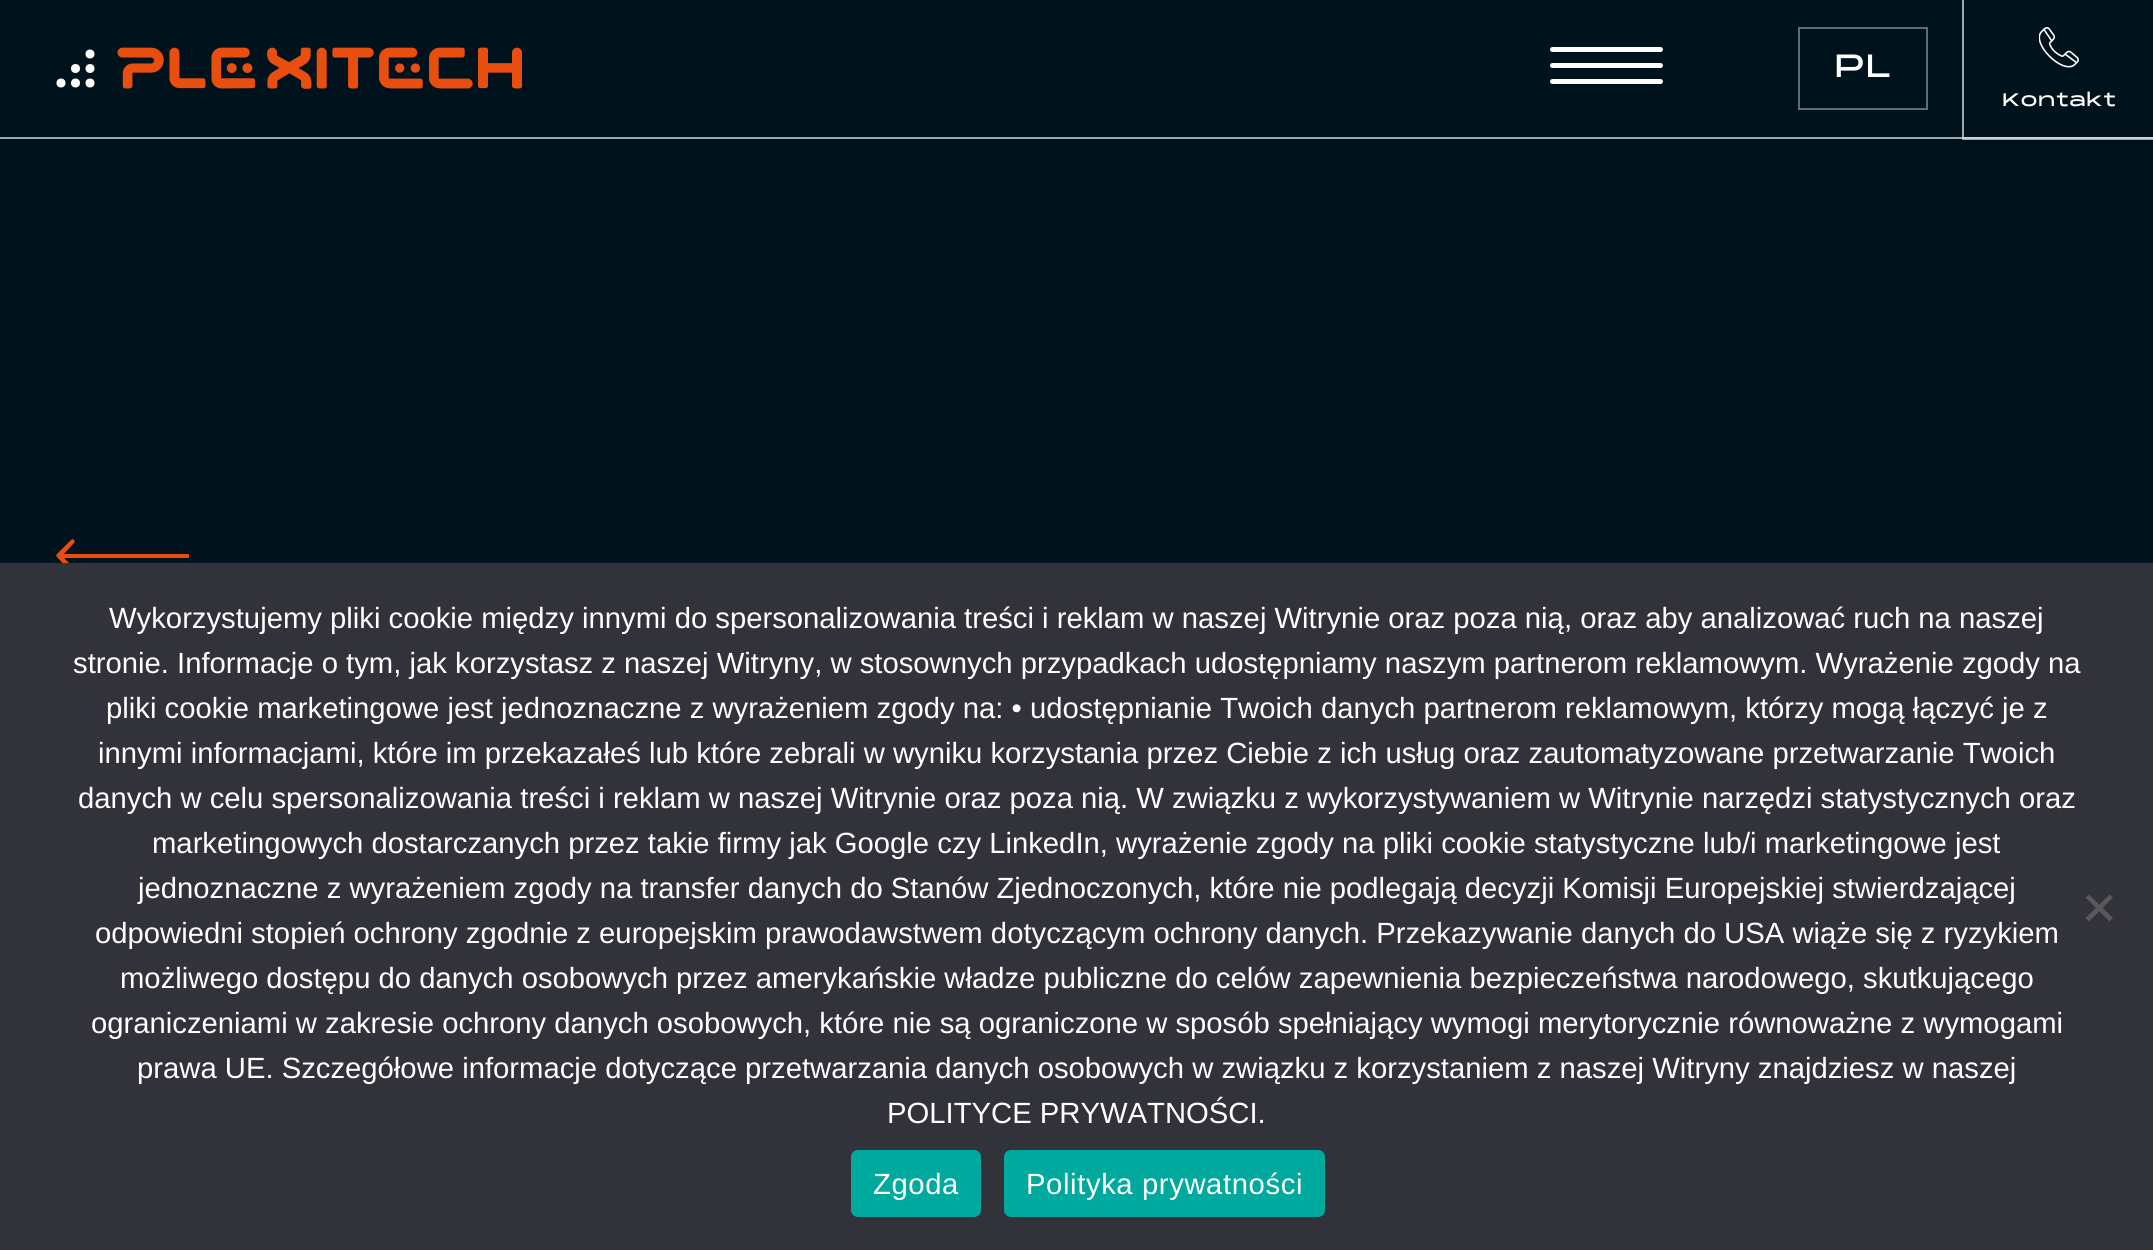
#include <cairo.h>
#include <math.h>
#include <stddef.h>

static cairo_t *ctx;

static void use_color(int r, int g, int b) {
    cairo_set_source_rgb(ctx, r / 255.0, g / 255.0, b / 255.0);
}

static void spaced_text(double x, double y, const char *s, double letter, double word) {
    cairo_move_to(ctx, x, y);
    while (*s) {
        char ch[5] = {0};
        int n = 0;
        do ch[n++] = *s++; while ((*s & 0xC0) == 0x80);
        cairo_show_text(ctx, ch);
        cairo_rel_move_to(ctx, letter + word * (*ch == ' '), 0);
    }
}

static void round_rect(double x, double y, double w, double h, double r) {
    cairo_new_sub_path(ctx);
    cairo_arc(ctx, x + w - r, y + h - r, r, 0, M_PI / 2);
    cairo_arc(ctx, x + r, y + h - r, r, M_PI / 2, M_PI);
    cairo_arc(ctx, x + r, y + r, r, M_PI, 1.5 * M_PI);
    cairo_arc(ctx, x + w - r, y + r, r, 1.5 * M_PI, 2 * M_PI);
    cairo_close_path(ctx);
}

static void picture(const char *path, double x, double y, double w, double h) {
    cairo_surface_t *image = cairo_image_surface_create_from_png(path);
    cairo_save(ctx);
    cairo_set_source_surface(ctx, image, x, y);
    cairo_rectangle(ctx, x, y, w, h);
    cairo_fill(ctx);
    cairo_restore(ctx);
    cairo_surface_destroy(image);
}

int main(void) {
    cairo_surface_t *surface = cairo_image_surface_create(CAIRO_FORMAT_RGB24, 2153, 1250);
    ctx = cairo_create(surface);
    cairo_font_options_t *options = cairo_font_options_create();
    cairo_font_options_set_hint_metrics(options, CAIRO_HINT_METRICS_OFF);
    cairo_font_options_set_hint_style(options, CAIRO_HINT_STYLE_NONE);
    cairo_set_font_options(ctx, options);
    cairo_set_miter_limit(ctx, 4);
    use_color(0, 19, 29);
    cairo_paint(ctx);
    use_color(160, 166, 169);
    cairo_rectangle(ctx, 0, 137, 2153, 2);
    cairo_fill(ctx);
    use_color(255, 255, 255);
    cairo_arc(ctx, 75.5, 68.5, 4.5, 0, 2 * M_PI);
    cairo_fill(ctx);
    cairo_arc(ctx, 75.5, 83, 4.5, 0, 2 * M_PI);
    cairo_fill(ctx);
    cairo_arc(ctx, 61, 83, 4.5, 0, 2 * M_PI);
    cairo_fill(ctx);
    cairo_arc(ctx, 90, 68.5, 4.5, 0, 2 * M_PI);
    cairo_fill(ctx);
    cairo_arc(ctx, 90, 54, 4.5, 0, 2 * M_PI);
    cairo_fill(ctx);
    cairo_arc(ctx, 90, 83, 4.5, 0, 2 * M_PI);
    cairo_fill(ctx);
    picture("img1.png", 117, 47, 405, 42);
    round_rect(1550, 47, 113, 5, 2.5);
    cairo_fill(ctx);
    round_rect(1550, 63, 113, 5, 2.5);
    cairo_fill(ctx);
    round_rect(1550, 79, 113, 5, 2.5);
    cairo_fill(ctx);
    cairo_rectangle(ctx, 1799, 28, 128, 81);
    use_color(97, 109, 115);
    cairo_stroke(ctx);
    cairo_select_font_face(ctx, "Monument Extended", CAIRO_FONT_SLANT_NORMAL, CAIRO_FONT_WEIGHT_NORMAL);
    cairo_set_font_size(ctx, 32);
    use_color(255, 255, 255);
    cairo_move_to(ctx, 1834, 77);
    cairo_show_text(ctx, "PL");
    cairo_set_source_rgba(ctx, 0.898, 0.898, 0.898, 0.7);
    cairo_new_path(ctx);
    cairo_move_to(ctx, 2153, 140);
    cairo_line_to(ctx, 1962, 140);
    cairo_line_to(ctx, 1964, 137);
    cairo_line_to(ctx, 2153, 137);
    cairo_close_path(ctx);
    cairo_fill(ctx);
    cairo_new_path(ctx);
    cairo_move_to(ctx, 1962, 140);
    cairo_line_to(ctx, 1962, 0);
    cairo_line_to(ctx, 1964, 0);
    cairo_line_to(ctx, 1964, 137);
    cairo_close_path(ctx);
    cairo_fill(ctx);
    picture("img2.png", 2039, 27, 40, 41);
    cairo_set_font_size(ctx, 18);
    use_color(255, 255, 255);
    cairo_move_to(ctx, 2002, 106);
    cairo_show_text(ctx, "Kontakt");
    use_color(232, 78, 15);
    cairo_new_path(ctx);
    cairo_move_to(ctx, 57, 554);
    cairo_curve_to(ctx, 56, 555, 56, 556, 57, 557);
    cairo_line_to(ctx, 71, 572);
    cairo_curve_to(ctx, 72, 573, 74, 573, 74, 572);
    cairo_curve_to(ctx, 75, 571, 75, 569, 74, 568);
    cairo_line_to(ctx, 62, 556);
    cairo_line_to(ctx, 74, 543);
    cairo_curve_to(ctx, 75, 542, 75, 541, 74, 540);
    cairo_curve_to(ctx, 74, 539, 72, 539, 71, 540);
    cairo_close_path(ctx);
    cairo_move_to(ctx, 189, 554);
    cairo_line_to(ctx, 58, 554);
    cairo_line_to(ctx, 58, 558);
    cairo_line_to(ctx, 189, 558);
    cairo_close_path(ctx);
    cairo_fill(ctx);
    use_color(50, 50, 58);
    cairo_rectangle(ctx, 0, 563, 2153, 687);
    cairo_fill(ctx);
    cairo_select_font_face(ctx, "Liberation Sans", CAIRO_FONT_SLANT_NORMAL, CAIRO_FONT_WEIGHT_NORMAL);
    cairo_set_font_size(ctx, 29.25);
    use_color(255, 255, 255);
    cairo_move_to(ctx, 109, 628);
    cairo_show_text(ctx, "Wykorzystujemy pliki cookie między innymi do spersonalizowania treści i reklam w naszej Witrynie oraz poza nią, oraz aby analizować ruch na naszej");
    cairo_move_to(ctx, 73, 673);
    cairo_show_text(ctx, "stronie. Informacje o tym, jak korzystasz z naszej Witryny, w stosownych przypadkach udostępniamy naszym partnerom reklamowym. Wyrażenie zgody na");
    cairo_move_to(ctx, 106, 718);
    cairo_show_text(ctx, "pliki cookie marketingowe jest jednoznaczne z wyrażeniem zgody na: • udostępnianie Twoich danych partnerom reklamowym, którzy mogą łączyć je z");
    cairo_move_to(ctx, 98, 763);
    cairo_show_text(ctx, "innymi informacjami, które im przekazałeś lub które zebrali w wyniku korzystania przez Ciebie z ich usług oraz zautomatyzowane przetwarzanie Twoich");
    cairo_move_to(ctx, 78, 808);
    cairo_show_text(ctx, "danych w celu spersonalizowania treści i reklam w naszej Witrynie oraz poza nią. W związku z wykorzystywaniem w Witrynie narzędzi statystycznych oraz");
    cairo_move_to(ctx, 152, 853);
    cairo_show_text(ctx, "marketingowych dostarczanych przez takie firmy jak Google czy LinkedIn, wyrażenie zgody na pliki cookie statystyczne lub/i marketingowe jest");
    cairo_move_to(ctx, 138, 898);
    cairo_show_text(ctx, "jednoznaczne z wyrażeniem zgody na transfer danych do Stanów Zjednoczonych, które nie podlegają decyzji Komisji Europejskiej stwierdzającej");
    cairo_move_to(ctx, 95, 943);
    cairo_show_text(ctx, "odpowiedni stopień ochrony zgodnie z europejskim prawodawstwem dotyczącym ochrony danych. Przekazywanie danych do USA wiąże się z ryzykiem");
    cairo_move_to(ctx, 120, 988);
    cairo_show_text(ctx, "możliwego dostępu do danych osobowych przez amerykańskie władze publiczne do celów zapewnienia bezpieczeństwa narodowego, skutkującego");
    cairo_move_to(ctx, 91, 1033);
    cairo_show_text(ctx, "ograniczeniami w zakresie ochrony danych osobowych, które nie są ograniczone w sposób spełniający wymogi merytorycznie równoważne z wymogami");
    cairo_move_to(ctx, 137, 1078);
    cairo_show_text(ctx, "prawa UE. Szczegółowe informacje dotyczące przetwarzania danych osobowych w związku z korzystaniem z naszej Witryny znajdziesz w naszej");
    cairo_move_to(ctx, 887, 1123);
    cairo_show_text(ctx, "POLITYCE PRYWATNOŚCI.");
    use_color(89, 89, 93);
    cairo_new_path(ctx);
    cairo_move_to(ctx, 2109.5, 894.5);
    cairo_line_to(ctx, 2113, 897.5);
    cairo_line_to(ctx, 2089, 921.5);
    cairo_line_to(ctx, 2085.5, 918);
    cairo_close_path(ctx);
    cairo_fill(ctx);
    cairo_new_path(ctx);
    cairo_move_to(ctx, 2085.5, 897.5);
    cairo_line_to(ctx, 2089, 894.5);
    cairo_line_to(ctx, 2113, 918);
    cairo_line_to(ctx, 2109.5, 921.5);
    cairo_close_path(ctx);
    cairo_fill(ctx);
    use_color(0, 169, 157);
    round_rect(851, 1150, 130, 67, 7);
    cairo_fill(ctx);
    use_color(255, 255, 255);
    spaced_text(873, 1194, "Zgoda", 0.6, 0);
    use_color(0, 169, 157);
    round_rect(1004, 1150, 321, 67, 7);
    cairo_fill(ctx);
    use_color(255, 255, 255);
    spaced_text(1026, 1194, "Polityka prywatności", 0.6, 0);
    cairo_surface_write_to_png(surface, "result.png");
    cairo_font_options_destroy(options);
    cairo_destroy(ctx);
    cairo_surface_destroy(surface);
    return 0;
}
